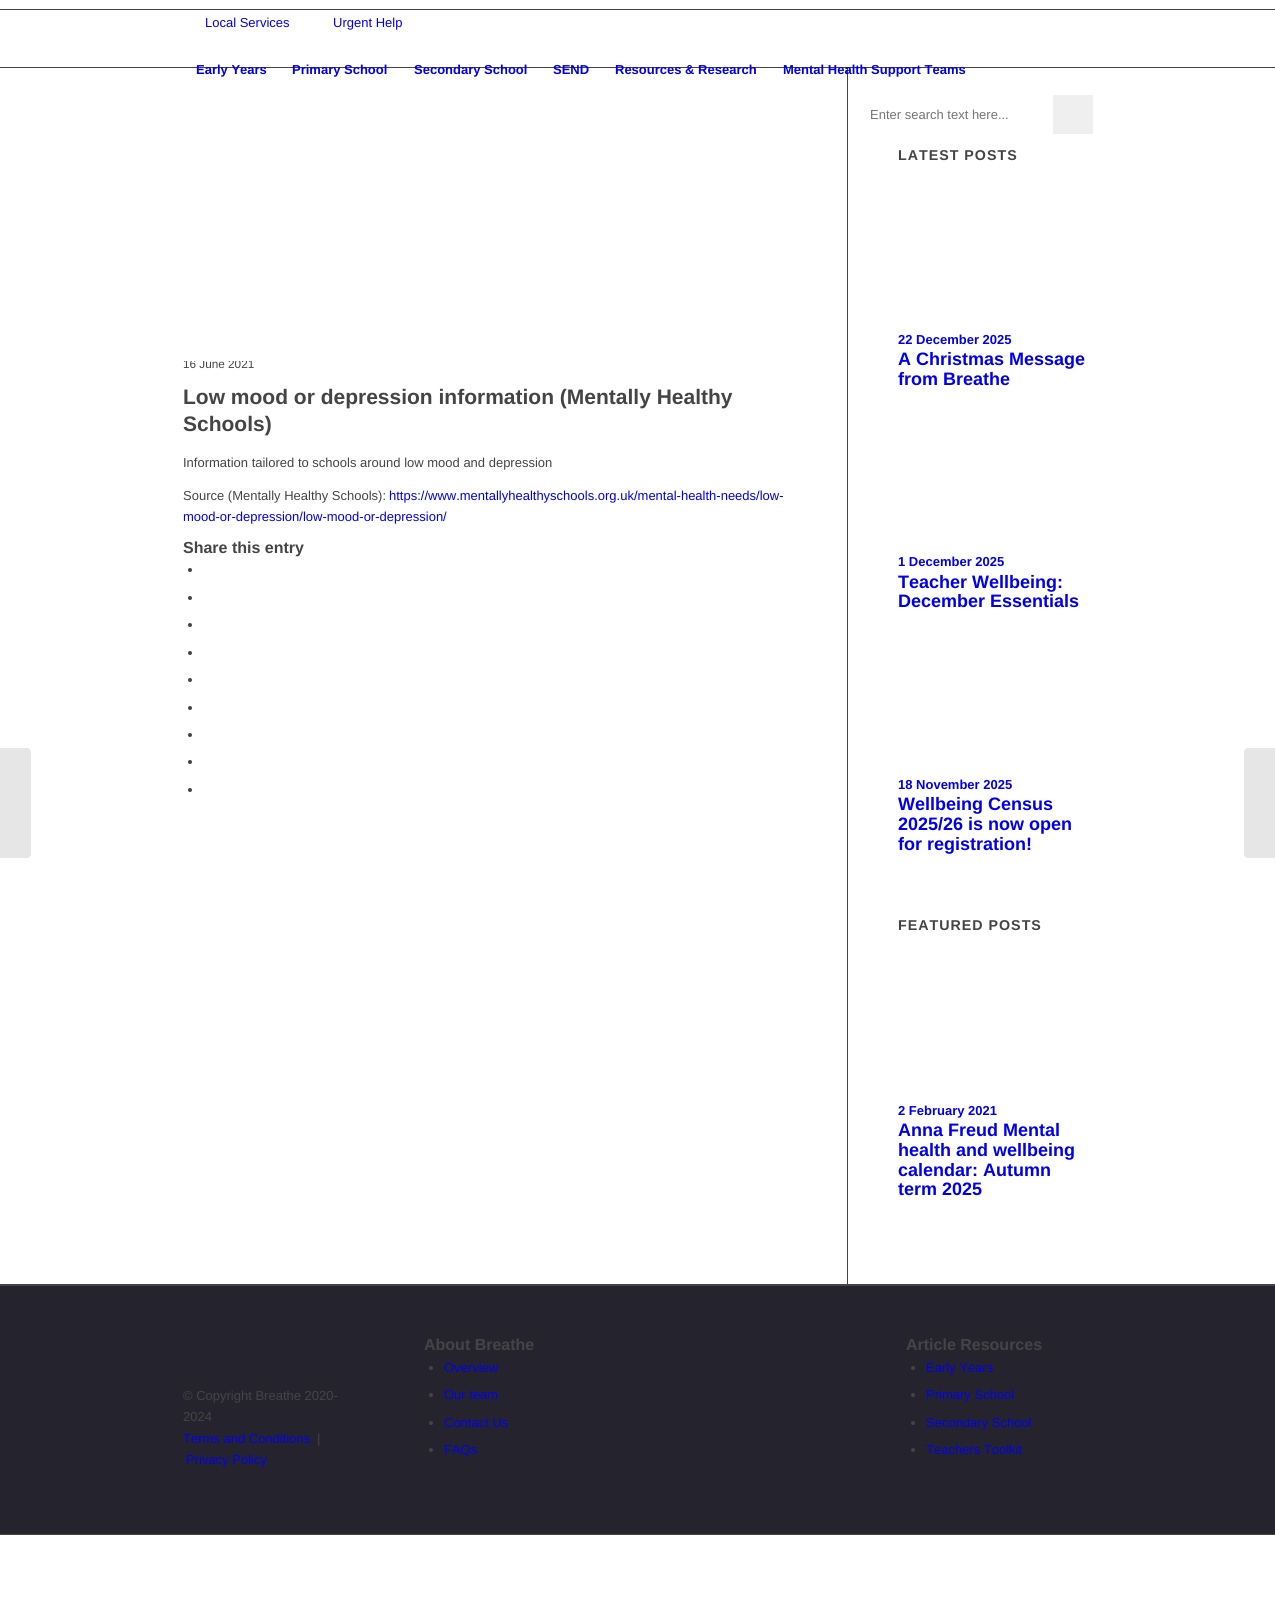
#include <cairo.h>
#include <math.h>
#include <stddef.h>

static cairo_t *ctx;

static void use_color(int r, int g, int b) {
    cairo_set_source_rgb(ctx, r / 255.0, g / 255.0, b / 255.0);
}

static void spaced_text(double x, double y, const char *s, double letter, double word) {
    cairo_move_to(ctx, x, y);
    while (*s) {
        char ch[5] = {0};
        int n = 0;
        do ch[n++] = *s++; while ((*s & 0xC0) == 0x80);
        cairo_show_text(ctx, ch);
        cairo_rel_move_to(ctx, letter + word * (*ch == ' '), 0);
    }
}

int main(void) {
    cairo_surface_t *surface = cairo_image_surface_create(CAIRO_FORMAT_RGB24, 1275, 1606);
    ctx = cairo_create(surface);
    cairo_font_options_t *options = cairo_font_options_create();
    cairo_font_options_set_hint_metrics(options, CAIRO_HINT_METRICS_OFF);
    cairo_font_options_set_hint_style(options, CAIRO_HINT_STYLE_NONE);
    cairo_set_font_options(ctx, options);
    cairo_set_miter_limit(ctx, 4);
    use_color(255, 255, 255);
    cairo_paint(ctx);
    cairo_select_font_face(ctx, "Liberation Sans", CAIRO_FONT_SLANT_NORMAL, CAIRO_FONT_WEIGHT_NORMAL);
    cairo_set_font_size(ctx, 13);
    use_color(0, 0, 238);
    cairo_move_to(ctx, 205, 27);
    cairo_show_text(ctx, "Local Services");
    cairo_move_to(ctx, 333, 27);
    cairo_show_text(ctx, "Urgent Help");
    use_color(68, 68, 68);
    cairo_rectangle(ctx, 0, 67, 1275, 1);
    cairo_fill(ctx);
    cairo_select_font_face(ctx, "Liberation Sans", CAIRO_FONT_SLANT_NORMAL, CAIRO_FONT_WEIGHT_BOLD);
    use_color(0, 0, 238);
    cairo_move_to(ctx, 196, 74);
    cairo_show_text(ctx, "Early Years");
    cairo_move_to(ctx, 292, 74);
    cairo_show_text(ctx, "Primary School");
    cairo_move_to(ctx, 414, 74);
    cairo_show_text(ctx, "Secondary School");
    cairo_move_to(ctx, 553, 74);
    cairo_show_text(ctx, "SEND");
    cairo_move_to(ctx, 615, 74);
    cairo_show_text(ctx, "Resources & Research");
    use_color(68, 68, 68);
    cairo_rectangle(ctx, 847, 68, 1, 1216);
    cairo_fill(ctx);
    use_color(0, 0, 238);
    cairo_move_to(ctx, 783, 74);
    cairo_show_text(ctx, "Mental Health Support Teams");
    cairo_select_font_face(ctx, "Liberation Sans", CAIRO_FONT_SLANT_NORMAL, CAIRO_FONT_WEIGHT_NORMAL);
    use_color(117, 117, 117);
    cairo_move_to(ctx, 870, 119);
    cairo_show_text(ctx, "Enter search text here...");
    use_color(239, 239, 239);
    cairo_rectangle(ctx, 1053, 95, 40, 39);
    cairo_fill(ctx);
    use_color(230, 230, 230);
    cairo_new_path(ctx);
    cairo_move_to(ctx, 0, 748);
    cairo_line_to(ctx, 27, 748);
    cairo_curve_to(ctx, 29, 748, 31, 750, 31, 752);
    cairo_line_to(ctx, 31, 854);
    cairo_curve_to(ctx, 31, 856, 29, 858, 27, 858);
    cairo_line_to(ctx, 0, 858);
    cairo_close_path(ctx);
    cairo_fill(ctx);
    use_color(68, 68, 68);
    cairo_rectangle(ctx, 0, 9, 1275, 1);
    cairo_fill(ctx);
    cairo_save(ctx);
    cairo_rectangle(ctx, 183, 361, 664, 562);
    cairo_clip(ctx);
    cairo_set_font_size(ctx, 11.75);
    cairo_move_to(ctx, 183, 368);
    cairo_show_text(ctx, "16 June 2021");
    cairo_restore(ctx);
    cairo_select_font_face(ctx, "Liberation Sans", CAIRO_FONT_SLANT_NORMAL, CAIRO_FONT_WEIGHT_BOLD);
    cairo_set_font_size(ctx, 21);
    cairo_move_to(ctx, 183, 404);
    cairo_show_text(ctx, "Low mood or depression information (Mentally Healthy");
    cairo_move_to(ctx, 183, 431);
    cairo_show_text(ctx, "Schools)");
    cairo_select_font_face(ctx, "Liberation Sans", CAIRO_FONT_SLANT_NORMAL, CAIRO_FONT_WEIGHT_NORMAL);
    cairo_set_font_size(ctx, 13);
    cairo_move_to(ctx, 183, 467);
    cairo_show_text(ctx, "Information tailored to schools around low mood and depression");
    cairo_move_to(ctx, 183, 500);
    cairo_show_text(ctx, "Source (Mentally Healthy Schools):");
    use_color(0, 0, 238);
    cairo_move_to(ctx, 389, 500);
    cairo_show_text(ctx, "https://www.mentallyhealthyschools.org.uk/mental-health-needs/low-");
    cairo_move_to(ctx, 183, 521);
    cairo_show_text(ctx, "mood-or-depression/low-mood-or-depression/");
    cairo_select_font_face(ctx, "Liberation Sans", CAIRO_FONT_SLANT_NORMAL, CAIRO_FONT_WEIGHT_BOLD);
    cairo_set_font_size(ctx, 16);
    use_color(68, 68, 68);
    cairo_move_to(ctx, 183, 553);
    cairo_show_text(ctx, "Share this entry");
    cairo_new_path(ctx);
    cairo_arc(ctx, 190, 570, 2, 0, 2 * M_PI);
    cairo_fill(ctx);
    cairo_arc(ctx, 190, 598, 2, 0, 2 * M_PI);
    cairo_fill(ctx);
    cairo_arc(ctx, 190, 625, 2, 0, 2 * M_PI);
    cairo_fill(ctx);
    cairo_arc(ctx, 190, 653, 2, 0, 2 * M_PI);
    cairo_fill(ctx);
    cairo_arc(ctx, 190, 680, 2, 0, 2 * M_PI);
    cairo_fill(ctx);
    cairo_arc(ctx, 190, 708, 2, 0, 2 * M_PI);
    cairo_fill(ctx);
    cairo_arc(ctx, 190, 735, 2, 0, 2 * M_PI);
    cairo_fill(ctx);
    cairo_arc(ctx, 190, 762, 2, 0, 2 * M_PI);
    cairo_fill(ctx);
    cairo_arc(ctx, 190, 790, 2, 0, 2 * M_PI);
    cairo_fill(ctx);
    cairo_set_font_size(ctx, 14.25);
    spaced_text(898, 160, "LATEST POSTS", 1, 0);
    cairo_set_font_size(ctx, 13);
    use_color(0, 0, 238);
    cairo_move_to(ctx, 898, 344);
    cairo_show_text(ctx, "22 December 2025");
    cairo_set_font_size(ctx, 18);
    cairo_move_to(ctx, 898, 365);
    cairo_show_text(ctx, "A Christmas Message");
    cairo_move_to(ctx, 898, 385);
    cairo_show_text(ctx, "from Breathe");
    cairo_set_font_size(ctx, 13);
    cairo_move_to(ctx, 898, 566);
    cairo_show_text(ctx, "1 December 2025");
    cairo_set_font_size(ctx, 18);
    cairo_move_to(ctx, 898, 588);
    cairo_show_text(ctx, "Teacher Wellbeing:");
    cairo_move_to(ctx, 898, 607);
    cairo_show_text(ctx, "December Essentials");
    cairo_set_font_size(ctx, 13);
    cairo_move_to(ctx, 898, 789);
    cairo_show_text(ctx, "18 November 2025");
    cairo_set_font_size(ctx, 18);
    cairo_move_to(ctx, 898, 810);
    cairo_show_text(ctx, "Wellbeing Census");
    cairo_move_to(ctx, 898, 830);
    cairo_show_text(ctx, "2025/26 is now open");
    cairo_move_to(ctx, 898, 850);
    cairo_show_text(ctx, "for registration!");
    cairo_set_font_size(ctx, 14.25);
    use_color(68, 68, 68);
    spaced_text(898, 930, "FEATURED POSTS", 1, 0);
    cairo_set_font_size(ctx, 13);
    use_color(0, 0, 238);
    cairo_move_to(ctx, 898, 1115);
    cairo_show_text(ctx, "2 February 2021");
    cairo_set_font_size(ctx, 18);
    cairo_move_to(ctx, 898, 1136);
    cairo_show_text(ctx, "Anna Freud Mental");
    cairo_move_to(ctx, 898, 1156);
    cairo_show_text(ctx, "health and wellbeing");
    cairo_move_to(ctx, 898, 1176);
    cairo_show_text(ctx, "calendar: Autumn");
    cairo_move_to(ctx, 898, 1195);
    cairo_show_text(ctx, "term 2025");
    use_color(68, 68, 68);
    cairo_rectangle(ctx, 0, 1284, 1275, 2);
    cairo_fill(ctx);
    use_color(37, 36, 46);
    cairo_rectangle(ctx, 0, 1286, 1275, 248);
    cairo_fill(ctx);
    cairo_select_font_face(ctx, "Liberation Sans", CAIRO_FONT_SLANT_NORMAL, CAIRO_FONT_WEIGHT_NORMAL);
    cairo_set_font_size(ctx, 13);
    use_color(68, 68, 68);
    cairo_move_to(ctx, 183, 1400);
    cairo_show_text(ctx, "© Copyright Breathe 2020-");
    cairo_move_to(ctx, 183, 1421);
    cairo_show_text(ctx, "2024");
    use_color(0, 0, 238);
    cairo_move_to(ctx, 183, 1443);
    cairo_show_text(ctx, "Terms and Conditions");
    use_color(68, 68, 68);
    cairo_move_to(ctx, 317, 1443);
    cairo_show_text(ctx, "|");
    use_color(0, 0, 238);
    cairo_move_to(ctx, 186, 1464);
    cairo_show_text(ctx, "Privacy Policy");
    cairo_select_font_face(ctx, "Liberation Sans", CAIRO_FONT_SLANT_NORMAL, CAIRO_FONT_WEIGHT_BOLD);
    cairo_set_font_size(ctx, 16);
    use_color(68, 68, 68);
    cairo_move_to(ctx, 424, 1350);
    cairo_show_text(ctx, "About Breathe");
    cairo_new_path(ctx);
    cairo_arc(ctx, 431, 1368, 2, 0, 2 * M_PI);
    cairo_fill(ctx);
    cairo_select_font_face(ctx, "Liberation Sans", CAIRO_FONT_SLANT_NORMAL, CAIRO_FONT_WEIGHT_NORMAL);
    cairo_set_font_size(ctx, 13);
    use_color(0, 0, 238);
    cairo_move_to(ctx, 444, 1372);
    cairo_show_text(ctx, "Overview");
    use_color(68, 68, 68);
    cairo_new_path(ctx);
    cairo_arc(ctx, 431, 1395, 2, 0, 2 * M_PI);
    cairo_fill(ctx);
    use_color(0, 0, 238);
    cairo_move_to(ctx, 444, 1399);
    cairo_show_text(ctx, "Our team");
    use_color(68, 68, 68);
    cairo_new_path(ctx);
    cairo_arc(ctx, 431, 1423, 2, 0, 2 * M_PI);
    cairo_fill(ctx);
    use_color(0, 0, 238);
    cairo_move_to(ctx, 444, 1427);
    cairo_show_text(ctx, "Contact Us");
    use_color(68, 68, 68);
    cairo_new_path(ctx);
    cairo_arc(ctx, 431, 1450, 2, 0, 2 * M_PI);
    cairo_fill(ctx);
    use_color(0, 0, 238);
    cairo_move_to(ctx, 444, 1454);
    cairo_show_text(ctx, "FAQs");
    cairo_select_font_face(ctx, "Liberation Sans", CAIRO_FONT_SLANT_NORMAL, CAIRO_FONT_WEIGHT_BOLD);
    cairo_set_font_size(ctx, 16);
    use_color(68, 68, 68);
    cairo_move_to(ctx, 906, 1350);
    cairo_show_text(ctx, "Article Resources");
    cairo_new_path(ctx);
    cairo_arc(ctx, 913, 1368, 2, 0, 2 * M_PI);
    cairo_fill(ctx);
    cairo_select_font_face(ctx, "Liberation Sans", CAIRO_FONT_SLANT_NORMAL, CAIRO_FONT_WEIGHT_NORMAL);
    cairo_set_font_size(ctx, 13);
    use_color(0, 0, 238);
    cairo_move_to(ctx, 926, 1372);
    cairo_show_text(ctx, "Early Years");
    use_color(68, 68, 68);
    cairo_new_path(ctx);
    cairo_arc(ctx, 913, 1395, 2, 0, 2 * M_PI);
    cairo_fill(ctx);
    use_color(0, 0, 238);
    cairo_move_to(ctx, 926, 1399);
    cairo_show_text(ctx, "Primary School");
    use_color(68, 68, 68);
    cairo_new_path(ctx);
    cairo_arc(ctx, 913, 1423, 2, 0, 2 * M_PI);
    cairo_fill(ctx);
    use_color(0, 0, 238);
    cairo_move_to(ctx, 926, 1427);
    cairo_show_text(ctx, "Secondary School");
    use_color(68, 68, 68);
    cairo_new_path(ctx);
    cairo_arc(ctx, 913, 1450, 2, 0, 2 * M_PI);
    cairo_fill(ctx);
    use_color(0, 0, 238);
    cairo_move_to(ctx, 926, 1454);
    cairo_show_text(ctx, "Teachers Toolkit");
    use_color(68, 68, 68);
    cairo_rectangle(ctx, 0, 1534, 1275, 1);
    cairo_fill(ctx);
    use_color(230, 230, 230);
    cairo_new_path(ctx);
    cairo_move_to(ctx, 1248, 748);
    cairo_line_to(ctx, 1275, 748);
    cairo_line_to(ctx, 1275, 858);
    cairo_line_to(ctx, 1248, 858);
    cairo_curve_to(ctx, 1246, 858, 1244, 856, 1244, 854);
    cairo_line_to(ctx, 1244, 752);
    cairo_curve_to(ctx, 1244, 750, 1246, 748, 1248, 748);
    cairo_close_path(ctx);
    cairo_fill(ctx);
    cairo_surface_write_to_png(surface, "result.png");
    cairo_font_options_destroy(options);
    cairo_destroy(ctx);
    cairo_surface_destroy(surface);
    return 0;
}
